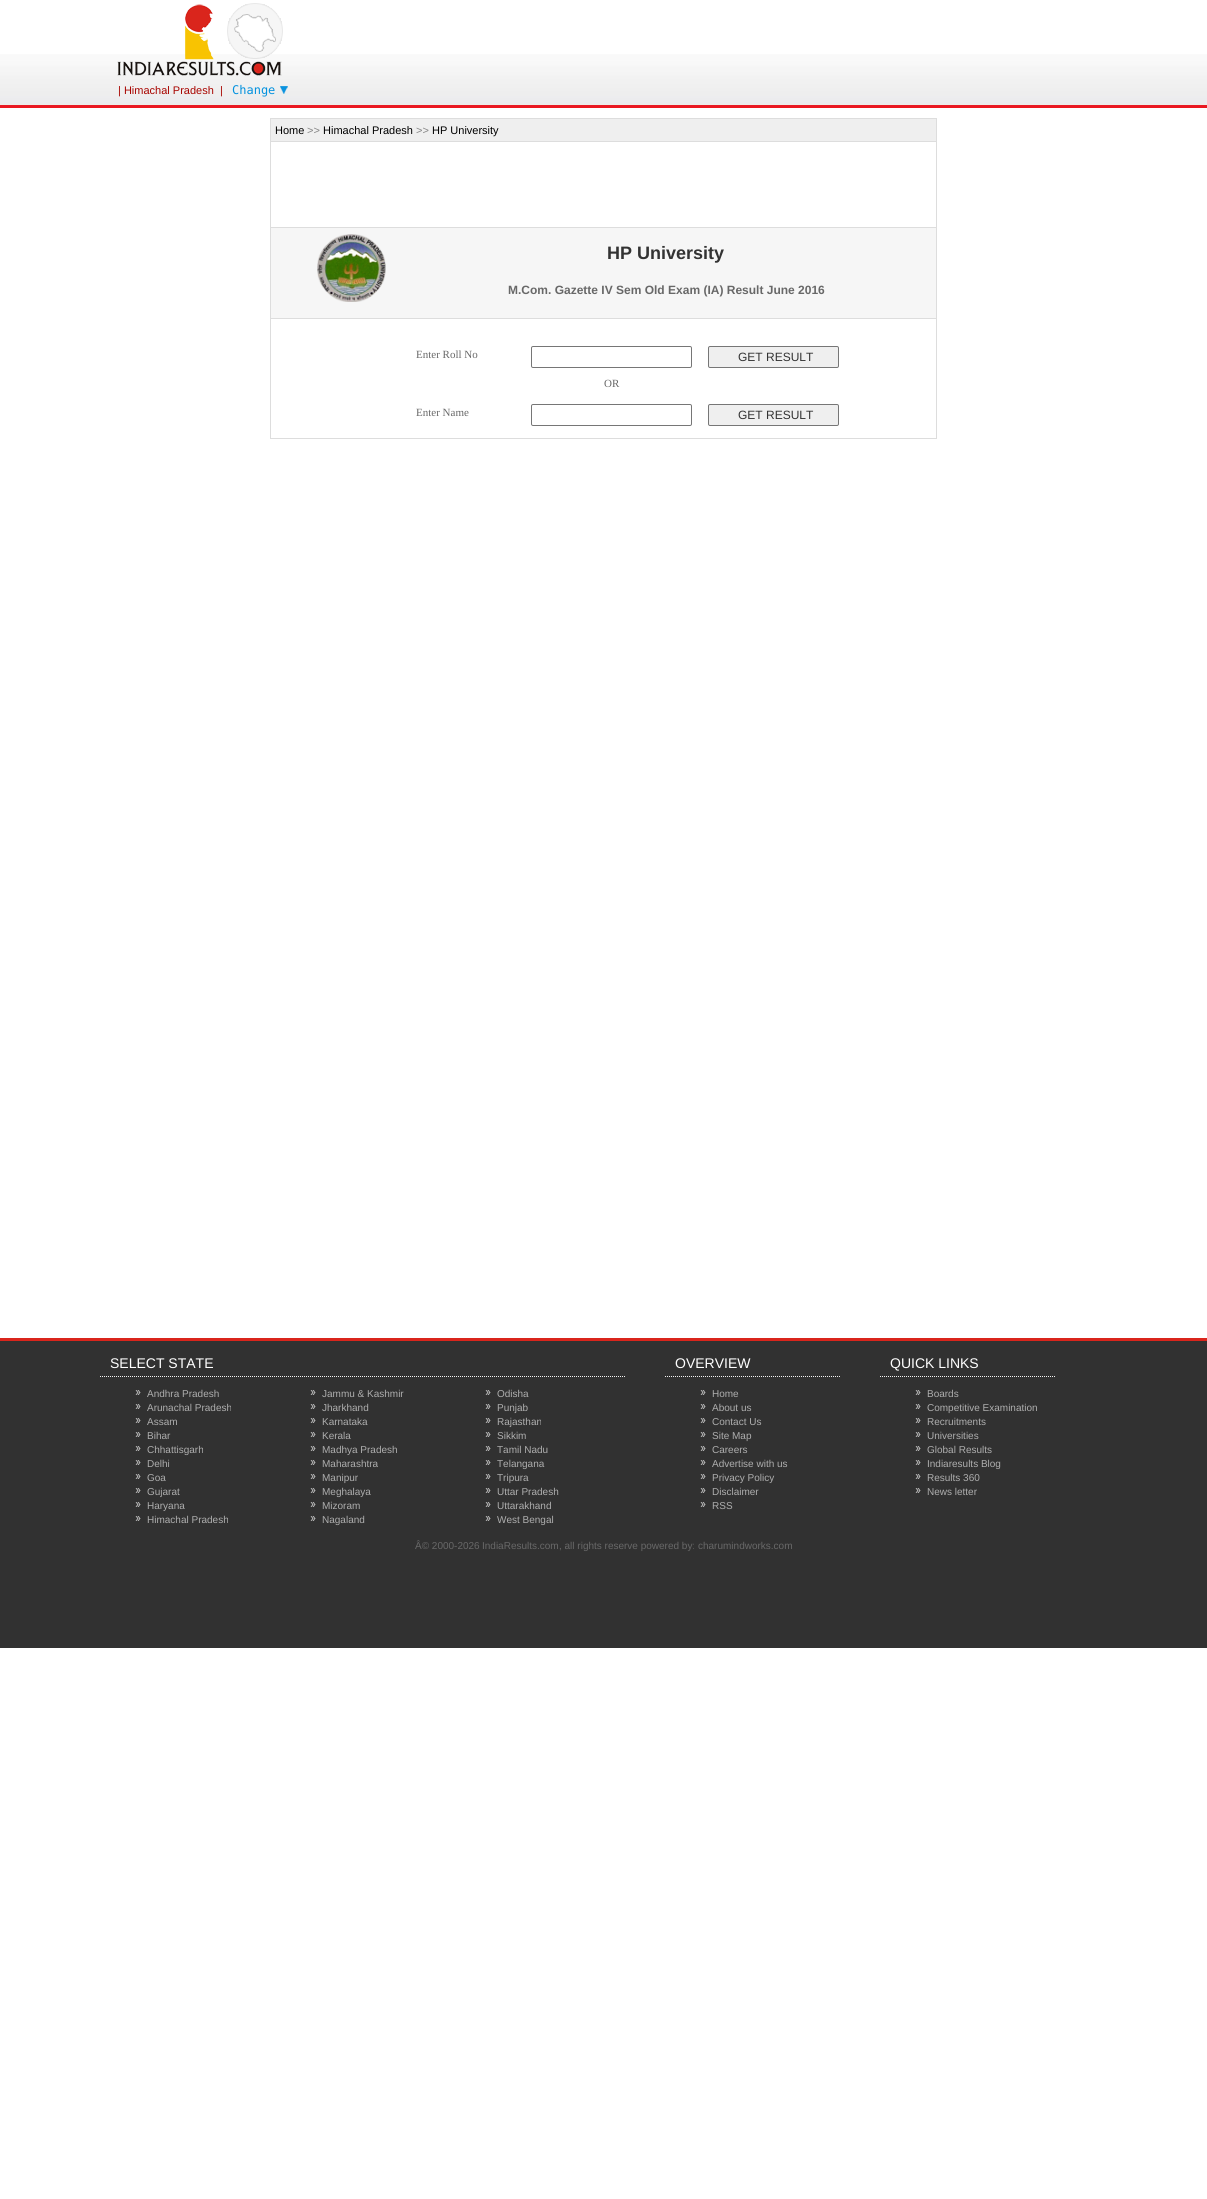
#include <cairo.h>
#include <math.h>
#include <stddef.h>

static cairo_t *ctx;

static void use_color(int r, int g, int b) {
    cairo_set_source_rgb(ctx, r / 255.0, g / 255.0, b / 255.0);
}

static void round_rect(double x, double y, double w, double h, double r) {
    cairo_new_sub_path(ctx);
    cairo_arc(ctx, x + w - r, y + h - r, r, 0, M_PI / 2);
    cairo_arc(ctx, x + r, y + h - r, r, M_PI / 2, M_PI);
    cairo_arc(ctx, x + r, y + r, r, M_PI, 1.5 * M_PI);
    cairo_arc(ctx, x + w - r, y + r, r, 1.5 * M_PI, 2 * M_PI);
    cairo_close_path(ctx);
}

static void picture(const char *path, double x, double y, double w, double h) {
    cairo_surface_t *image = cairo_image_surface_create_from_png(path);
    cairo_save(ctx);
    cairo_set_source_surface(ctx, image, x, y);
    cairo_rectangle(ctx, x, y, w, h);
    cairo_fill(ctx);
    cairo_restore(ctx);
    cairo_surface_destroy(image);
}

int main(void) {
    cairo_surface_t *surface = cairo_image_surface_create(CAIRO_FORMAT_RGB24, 1207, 2199);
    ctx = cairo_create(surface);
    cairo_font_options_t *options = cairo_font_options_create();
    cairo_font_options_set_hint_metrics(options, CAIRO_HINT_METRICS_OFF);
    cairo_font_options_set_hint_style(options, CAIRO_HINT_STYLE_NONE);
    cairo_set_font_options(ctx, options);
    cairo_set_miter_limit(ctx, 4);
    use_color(255, 255, 255);
    cairo_paint(ctx);
    picture("img1.png", 0, 54, 1207, 54);
    picture("img2.png", 117, 3, 166, 73);
    cairo_select_font_face(ctx, "Liberation Sans", CAIRO_FONT_SLANT_NORMAL, CAIRO_FONT_WEIGHT_NORMAL);
    cairo_set_font_size(ctx, 11);
    use_color(168, 4, 0);
    cairo_move_to(ctx, 118, 94);
    cairo_show_text(ctx, "| Himachal Pradesh");
    cairo_move_to(ctx, 220, 94);
    cairo_show_text(ctx, "|");
    cairo_select_font_face(ctx, "DejaVu Sans Mono", CAIRO_FONT_SLANT_NORMAL, CAIRO_FONT_WEIGHT_NORMAL);
    cairo_set_font_size(ctx, 12);
    use_color(2, 145, 223);
    cairo_move_to(ctx, 232, 94);
    cairo_show_text(ctx, "Change");
    picture("img3.png", 280, 86, 8, 8);
    cairo_rectangle(ctx, 270.5, 118.5, 666, 320);
    use_color(221, 221, 221);
    cairo_set_line_width(ctx, 1);
    cairo_stroke(ctx);
    use_color(239, 239, 239);
    cairo_rectangle(ctx, 271, 119, 665, 22);
    cairo_fill(ctx);
    use_color(221, 221, 221);
    cairo_rectangle(ctx, 271, 141, 665, 1);
    cairo_fill(ctx);
    cairo_select_font_face(ctx, "Liberation Sans", CAIRO_FONT_SLANT_NORMAL, CAIRO_FONT_WEIGHT_NORMAL);
    cairo_set_font_size(ctx, 11);
    use_color(0, 0, 0);
    cairo_move_to(ctx, 275, 134);
    cairo_show_text(ctx, "Home");
    use_color(133, 133, 133);
    cairo_move_to(ctx, 307, 134);
    cairo_show_text(ctx, ">>");
    use_color(0, 0, 0);
    cairo_move_to(ctx, 323, 134);
    cairo_show_text(ctx, "Himachal Pradesh");
    use_color(133, 133, 133);
    cairo_move_to(ctx, 416, 134);
    cairo_show_text(ctx, ">>");
    use_color(0, 0, 0);
    cairo_move_to(ctx, 432, 134);
    cairo_show_text(ctx, "HP University");
    use_color(246, 246, 246);
    cairo_rectangle(ctx, 271, 228, 665, 90);
    cairo_fill(ctx);
    use_color(221, 221, 221);
    cairo_rectangle(ctx, 271, 227, 665, 1);
    cairo_fill(ctx);
    cairo_rectangle(ctx, 271, 318, 665, 1);
    cairo_fill(ctx);
    picture("img4.png", 317, 234, 69, 68);
    cairo_select_font_face(ctx, "Liberation Sans", CAIRO_FONT_SLANT_NORMAL, CAIRO_FONT_WEIGHT_BOLD);
    cairo_set_font_size(ctx, 18);
    use_color(51, 51, 51);
    cairo_move_to(ctx, 607, 259);
    cairo_show_text(ctx, "HP University");
    cairo_set_font_size(ctx, 12);
    use_color(104, 104, 104);
    cairo_move_to(ctx, 508, 294);
    cairo_show_text(ctx, "M.Com. Gazette IV Sem Old Exam (IA) Result June 2016");
    cairo_select_font_face(ctx, "Liberation Serif", CAIRO_FONT_SLANT_NORMAL, CAIRO_FONT_WEIGHT_NORMAL);
    cairo_set_font_size(ctx, 11);
    cairo_move_to(ctx, 416, 358);
    cairo_show_text(ctx, "Enter Roll No");
    round_rect(531.5, 346.5, 160, 21, 1.5);
    use_color(118, 118, 118);
    cairo_stroke(ctx);
    use_color(239, 239, 239);
    round_rect(708.5, 346.5, 130, 21, 1.5);
    cairo_fill_preserve(ctx);
    use_color(118, 118, 118);
    cairo_stroke(ctx);
    cairo_select_font_face(ctx, "Liberation Sans", CAIRO_FONT_SLANT_NORMAL, CAIRO_FONT_WEIGHT_NORMAL);
    cairo_set_font_size(ctx, 12);
    use_color(51, 51, 51);
    cairo_move_to(ctx, 738, 361);
    cairo_show_text(ctx, "GET RESULT");
    cairo_select_font_face(ctx, "Liberation Serif", CAIRO_FONT_SLANT_NORMAL, CAIRO_FONT_WEIGHT_NORMAL);
    cairo_set_font_size(ctx, 11);
    use_color(104, 104, 104);
    cairo_move_to(ctx, 604, 387);
    cairo_show_text(ctx, "OR");
    cairo_move_to(ctx, 416, 416);
    cairo_show_text(ctx, "Enter Name");
    round_rect(531.5, 404.5, 160, 21, 1.5);
    use_color(118, 118, 118);
    cairo_stroke(ctx);
    use_color(239, 239, 239);
    round_rect(708.5, 404.5, 130, 21, 1.5);
    cairo_fill_preserve(ctx);
    use_color(118, 118, 118);
    cairo_stroke(ctx);
    cairo_select_font_face(ctx, "Liberation Sans", CAIRO_FONT_SLANT_NORMAL, CAIRO_FONT_WEIGHT_NORMAL);
    cairo_set_font_size(ctx, 12);
    use_color(51, 51, 51);
    cairo_move_to(ctx, 738, 419);
    cairo_show_text(ctx, "GET RESULT");
    use_color(49, 49, 49);
    cairo_rectangle(ctx, 0, 1341, 1207, 307);
    cairo_fill(ctx);
    use_color(218, 37, 28);
    cairo_rectangle(ctx, 0, 1338, 1207, 3);
    cairo_fill(ctx);
    cairo_new_path(ctx);
    cairo_move_to(ctx, 100, 1376.5);
    cairo_line_to(ctx, 625, 1376.5);
    use_color(244, 244, 244);
    cairo_set_dash(ctx, (double[]){1, 1}, 2, 0);
    cairo_stroke(ctx);
    cairo_set_font_size(ctx, 14);
    use_color(255, 255, 255);
    cairo_move_to(ctx, 110, 1368);
    cairo_show_text(ctx, "SELECT STATE");
    picture("img5.png", 135, 1390, 6, 5);
    cairo_set_font_size(ctx, 10);
    use_color(174, 174, 174);
    cairo_move_to(ctx, 147, 1397);
    cairo_show_text(ctx, "Andhra Pradesh");
    picture("img5.png", 135, 1404, 6, 5);
    cairo_move_to(ctx, 147, 1411);
    cairo_show_text(ctx, "Arunachal Pradesh");
    picture("img5.png", 135, 1418, 6, 5);
    cairo_move_to(ctx, 147, 1425);
    cairo_show_text(ctx, "Assam");
    picture("img5.png", 135, 1432, 6, 5);
    cairo_move_to(ctx, 147, 1439);
    cairo_show_text(ctx, "Bihar");
    picture("img5.png", 135, 1446, 6, 5);
    cairo_move_to(ctx, 147, 1453);
    cairo_show_text(ctx, "Chhattisgarh");
    picture("img5.png", 135, 1460, 6, 5);
    cairo_move_to(ctx, 147, 1467);
    cairo_show_text(ctx, "Delhi");
    picture("img5.png", 135, 1474, 6, 5);
    cairo_move_to(ctx, 147, 1481);
    cairo_show_text(ctx, "Goa");
    picture("img5.png", 135, 1488, 6, 5);
    cairo_move_to(ctx, 147, 1495);
    cairo_show_text(ctx, "Gujarat");
    picture("img5.png", 135, 1502, 6, 5);
    cairo_move_to(ctx, 147, 1509);
    cairo_show_text(ctx, "Haryana");
    picture("img5.png", 135, 1516, 6, 5);
    cairo_move_to(ctx, 147, 1523);
    cairo_show_text(ctx, "Himachal Pradesh");
    picture("img5.png", 310, 1390, 6, 5);
    cairo_move_to(ctx, 322, 1397);
    cairo_show_text(ctx, "Jammu & Kashmir");
    picture("img5.png", 310, 1404, 6, 5);
    cairo_move_to(ctx, 322, 1411);
    cairo_show_text(ctx, "Jharkhand");
    picture("img5.png", 310, 1418, 6, 5);
    cairo_move_to(ctx, 322, 1425);
    cairo_show_text(ctx, "Karnataka");
    picture("img5.png", 310, 1432, 6, 5);
    cairo_move_to(ctx, 322, 1439);
    cairo_show_text(ctx, "Kerala");
    picture("img5.png", 310, 1446, 6, 5);
    cairo_move_to(ctx, 322, 1453);
    cairo_show_text(ctx, "Madhya Pradesh");
    picture("img5.png", 310, 1460, 6, 5);
    cairo_move_to(ctx, 322, 1467);
    cairo_show_text(ctx, "Maharashtra");
    picture("img5.png", 310, 1474, 6, 5);
    cairo_move_to(ctx, 322, 1481);
    cairo_show_text(ctx, "Manipur");
    picture("img5.png", 310, 1488, 6, 5);
    cairo_move_to(ctx, 322, 1495);
    cairo_show_text(ctx, "Meghalaya");
    picture("img5.png", 310, 1502, 6, 5);
    cairo_move_to(ctx, 322, 1509);
    cairo_show_text(ctx, "Mizoram");
    picture("img5.png", 310, 1516, 6, 5);
    cairo_move_to(ctx, 322, 1523);
    cairo_show_text(ctx, "Nagaland");
    picture("img5.png", 485, 1390, 6, 5);
    cairo_move_to(ctx, 497, 1397);
    cairo_show_text(ctx, "Odisha");
    picture("img5.png", 485, 1404, 6, 5);
    cairo_move_to(ctx, 497, 1411);
    cairo_show_text(ctx, "Punjab");
    picture("img5.png", 485, 1418, 6, 5);
    cairo_move_to(ctx, 497, 1425);
    cairo_show_text(ctx, "Rajasthan");
    picture("img5.png", 485, 1432, 6, 5);
    cairo_move_to(ctx, 497, 1439);
    cairo_show_text(ctx, "Sikkim");
    picture("img5.png", 485, 1446, 6, 5);
    cairo_move_to(ctx, 497, 1453);
    cairo_show_text(ctx, "Tamil Nadu");
    picture("img5.png", 485, 1460, 6, 5);
    cairo_move_to(ctx, 497, 1467);
    cairo_show_text(ctx, "Telangana");
    picture("img5.png", 485, 1474, 6, 5);
    cairo_move_to(ctx, 497, 1481);
    cairo_show_text(ctx, "Tripura");
    picture("img5.png", 485, 1488, 6, 5);
    cairo_move_to(ctx, 497, 1495);
    cairo_show_text(ctx, "Uttar Pradesh");
    picture("img5.png", 485, 1502, 6, 5);
    cairo_move_to(ctx, 497, 1509);
    cairo_show_text(ctx, "Uttarakhand");
    picture("img5.png", 485, 1516, 6, 5);
    cairo_move_to(ctx, 497, 1523);
    cairo_show_text(ctx, "West Bengal");
    cairo_new_path(ctx);
    cairo_move_to(ctx, 665, 1376.5);
    cairo_line_to(ctx, 840, 1376.5);
    use_color(244, 244, 244);
    cairo_stroke(ctx);
    cairo_set_font_size(ctx, 14);
    use_color(255, 255, 255);
    cairo_move_to(ctx, 675, 1368);
    cairo_show_text(ctx, "OVERVIEW");
    picture("img5.png", 700, 1390, 6, 5);
    cairo_set_font_size(ctx, 10);
    use_color(174, 174, 174);
    cairo_move_to(ctx, 712, 1397);
    cairo_show_text(ctx, "Home");
    picture("img5.png", 700, 1404, 6, 5);
    cairo_move_to(ctx, 712, 1411);
    cairo_show_text(ctx, "About us");
    picture("img5.png", 700, 1418, 6, 5);
    cairo_move_to(ctx, 712, 1425);
    cairo_show_text(ctx, "Contact Us");
    picture("img5.png", 700, 1432, 6, 5);
    cairo_move_to(ctx, 712, 1439);
    cairo_show_text(ctx, "Site Map");
    picture("img5.png", 700, 1446, 6, 5);
    cairo_move_to(ctx, 712, 1453);
    cairo_show_text(ctx, "Careers");
    picture("img5.png", 700, 1460, 6, 5);
    cairo_move_to(ctx, 712, 1467);
    cairo_show_text(ctx, "Advertise with us");
    picture("img5.png", 700, 1474, 6, 5);
    cairo_move_to(ctx, 712, 1481);
    cairo_show_text(ctx, "Privacy Policy");
    picture("img5.png", 700, 1488, 6, 5);
    cairo_move_to(ctx, 712, 1495);
    cairo_show_text(ctx, "Disclaimer");
    picture("img5.png", 700, 1502, 6, 5);
    cairo_move_to(ctx, 712, 1509);
    cairo_show_text(ctx, "RSS");
    cairo_new_path(ctx);
    cairo_move_to(ctx, 880, 1376.5);
    cairo_line_to(ctx, 1055, 1376.5);
    use_color(244, 244, 244);
    cairo_stroke(ctx);
    cairo_set_font_size(ctx, 14);
    use_color(255, 255, 255);
    cairo_move_to(ctx, 890, 1368);
    cairo_show_text(ctx, "QUICK LINKS");
    picture("img5.png", 915, 1390, 6, 5);
    cairo_set_font_size(ctx, 10);
    use_color(174, 174, 174);
    cairo_move_to(ctx, 927, 1397);
    cairo_show_text(ctx, "Boards");
    picture("img5.png", 915, 1404, 6, 5);
    cairo_move_to(ctx, 927, 1411);
    cairo_show_text(ctx, "Competitive Examination");
    picture("img5.png", 915, 1418, 6, 5);
    cairo_move_to(ctx, 927, 1425);
    cairo_show_text(ctx, "Recruitments");
    picture("img5.png", 915, 1432, 6, 5);
    cairo_move_to(ctx, 927, 1439);
    cairo_show_text(ctx, "Universities");
    picture("img5.png", 915, 1446, 6, 5);
    cairo_move_to(ctx, 927, 1453);
    cairo_show_text(ctx, "Global Results");
    picture("img5.png", 915, 1460, 6, 5);
    cairo_move_to(ctx, 927, 1467);
    cairo_show_text(ctx, "Indiaresults Blog");
    picture("img5.png", 915, 1474, 6, 5);
    cairo_move_to(ctx, 927, 1481);
    cairo_show_text(ctx, "Results 360");
    picture("img5.png", 915, 1488, 6, 5);
    cairo_move_to(ctx, 927, 1495);
    cairo_show_text(ctx, "News letter");
    use_color(104, 104, 104);
    cairo_move_to(ctx, 415, 1549);
    cairo_show_text(ctx, "Â© 2000-2026");
    cairo_move_to(ctx, 482, 1549);
    cairo_show_text(ctx, "IndiaResults.com");
    cairo_move_to(ctx, 559, 1549);
    cairo_show_text(ctx, ", all rights reserve powered by:");
    cairo_move_to(ctx, 698, 1549);
    cairo_show_text(ctx, "charumindworks.com");
    cairo_surface_write_to_png(surface, "result.png");
    cairo_font_options_destroy(options);
    cairo_destroy(ctx);
    cairo_surface_destroy(surface);
    return 0;
}
